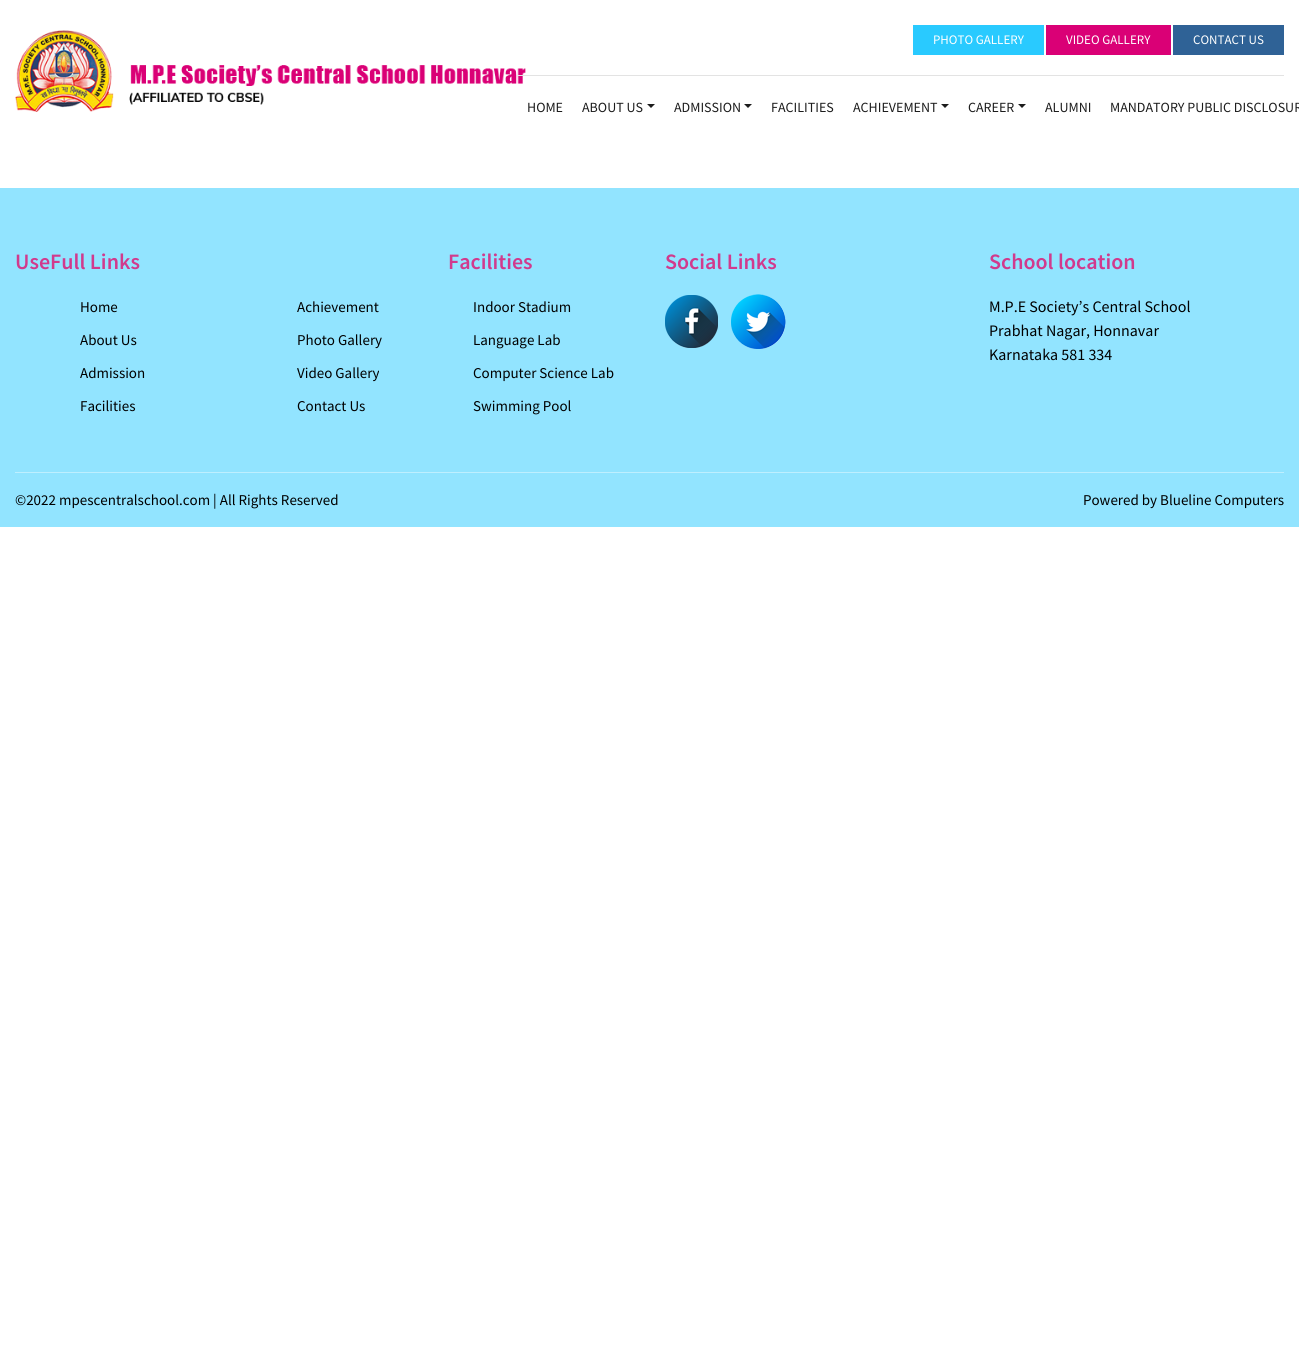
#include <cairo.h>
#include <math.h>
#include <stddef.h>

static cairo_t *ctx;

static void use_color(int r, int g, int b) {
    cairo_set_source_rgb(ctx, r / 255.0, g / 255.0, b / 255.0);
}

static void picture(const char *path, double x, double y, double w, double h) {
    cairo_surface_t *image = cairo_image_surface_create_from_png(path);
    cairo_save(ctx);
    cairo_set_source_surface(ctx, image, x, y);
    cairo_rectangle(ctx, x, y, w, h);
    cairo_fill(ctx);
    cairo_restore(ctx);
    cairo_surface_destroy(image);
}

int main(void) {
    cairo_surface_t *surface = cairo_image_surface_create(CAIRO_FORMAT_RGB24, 1299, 1369);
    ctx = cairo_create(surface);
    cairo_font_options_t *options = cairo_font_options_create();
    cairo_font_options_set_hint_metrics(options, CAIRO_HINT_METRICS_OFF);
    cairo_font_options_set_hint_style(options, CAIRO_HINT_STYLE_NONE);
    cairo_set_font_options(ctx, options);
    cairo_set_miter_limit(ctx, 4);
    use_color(255, 255, 255);
    cairo_paint(ctx);
    picture("img1.png", 15, 30, 511, 82);
    use_color(41, 202, 255);
    cairo_rectangle(ctx, 913, 25, 131, 30);
    cairo_fill(ctx);
    cairo_select_font_face(ctx, "Source Sans Pro", CAIRO_FONT_SLANT_NORMAL, CAIRO_FONT_WEIGHT_NORMAL);
    cairo_set_font_size(ctx, 13);
    use_color(255, 255, 255);
    cairo_move_to(ctx, 933, 44);
    cairo_show_text(ctx, "PHOTO GALLERY");
    use_color(218, 0, 118);
    cairo_rectangle(ctx, 1046, 25, 125, 30);
    cairo_fill(ctx);
    use_color(255, 255, 255);
    cairo_move_to(ctx, 1066, 44);
    cairo_show_text(ctx, "VIDEO GALLERY");
    use_color(47, 98, 150);
    cairo_rectangle(ctx, 1173, 25, 111, 30);
    cairo_fill(ctx);
    use_color(255, 255, 255);
    cairo_move_to(ctx, 1193, 44);
    cairo_show_text(ctx, "CONTACT US");
    use_color(227, 227, 227);
    cairo_rectangle(ctx, 518, 75, 766, 1);
    cairo_fill(ctx);
    cairo_set_font_size(ctx, 14);
    use_color(28, 28, 28);
    cairo_move_to(ctx, 527, 112);
    cairo_show_text(ctx, "HOME");
    cairo_move_to(ctx, 582, 112);
    cairo_show_text(ctx, "ABOUT US");
    cairo_new_path(ctx);
    cairo_move_to(ctx, 647, 104);
    cairo_line_to(ctx, 655, 104);
    cairo_line_to(ctx, 651, 108);
    cairo_close_path(ctx);
    cairo_fill(ctx);
    cairo_move_to(ctx, 674, 112);
    cairo_show_text(ctx, "ADMISSION");
    cairo_new_path(ctx);
    cairo_move_to(ctx, 744, 104);
    cairo_line_to(ctx, 752, 104);
    cairo_line_to(ctx, 748, 108);
    cairo_close_path(ctx);
    cairo_fill(ctx);
    cairo_move_to(ctx, 771, 112);
    cairo_show_text(ctx, "FACILITIES");
    cairo_move_to(ctx, 853, 112);
    cairo_show_text(ctx, "ACHIEVEMENT");
    cairo_new_path(ctx);
    cairo_move_to(ctx, 941, 104);
    cairo_line_to(ctx, 949, 104);
    cairo_line_to(ctx, 945, 108);
    cairo_close_path(ctx);
    cairo_fill(ctx);
    cairo_move_to(ctx, 968, 112);
    cairo_show_text(ctx, "CAREER");
    cairo_new_path(ctx);
    cairo_move_to(ctx, 1018, 104);
    cairo_line_to(ctx, 1026, 104);
    cairo_line_to(ctx, 1022, 108);
    cairo_close_path(ctx);
    cairo_fill(ctx);
    cairo_move_to(ctx, 1045, 112);
    cairo_show_text(ctx, "ALUMNI");
    cairo_move_to(ctx, 1110, 112);
    cairo_show_text(ctx, "MANDATORY PUBLIC DISCLOSUR");
    use_color(146, 228, 255);
    cairo_rectangle(ctx, 0, 188, 1299, 339);
    cairo_fill(ctx);
    cairo_select_font_face(ctx, "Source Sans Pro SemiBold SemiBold", CAIRO_FONT_SLANT_NORMAL, CAIRO_FONT_WEIGHT_NORMAL);
    cairo_set_font_size(ctx, 22);
    use_color(209, 58, 141);
    cairo_move_to(ctx, 15, 269);
    cairo_show_text(ctx, "UseFull Links");
    cairo_select_font_face(ctx, "Source Sans Pro", CAIRO_FONT_SLANT_NORMAL, CAIRO_FONT_WEIGHT_NORMAL);
    cairo_set_font_size(ctx, 15);
    use_color(0, 0, 0);
    cairo_move_to(ctx, 80, 312);
    cairo_show_text(ctx, "Home");
    cairo_move_to(ctx, 80, 345);
    cairo_show_text(ctx, "About Us");
    cairo_move_to(ctx, 80, 378);
    cairo_show_text(ctx, "Admission");
    cairo_move_to(ctx, 80, 411);
    cairo_show_text(ctx, "Facilities");
    cairo_move_to(ctx, 297, 312);
    cairo_show_text(ctx, "Achievement");
    cairo_move_to(ctx, 297, 345);
    cairo_show_text(ctx, "Photo Gallery");
    cairo_move_to(ctx, 297, 378);
    cairo_show_text(ctx, "Video Gallery");
    cairo_move_to(ctx, 297, 411);
    cairo_show_text(ctx, "Contact Us");
    cairo_select_font_face(ctx, "Source Sans Pro SemiBold SemiBold", CAIRO_FONT_SLANT_NORMAL, CAIRO_FONT_WEIGHT_NORMAL);
    cairo_set_font_size(ctx, 22);
    use_color(209, 58, 141);
    cairo_move_to(ctx, 448, 269);
    cairo_show_text(ctx, "Facilities");
    cairo_select_font_face(ctx, "Source Sans Pro", CAIRO_FONT_SLANT_NORMAL, CAIRO_FONT_WEIGHT_NORMAL);
    cairo_set_font_size(ctx, 15);
    use_color(0, 0, 0);
    cairo_move_to(ctx, 473, 312);
    cairo_show_text(ctx, "Indoor Stadium");
    cairo_move_to(ctx, 473, 345);
    cairo_show_text(ctx, "Language Lab");
    cairo_move_to(ctx, 473, 378);
    cairo_show_text(ctx, "Computer Science Lab");
    cairo_move_to(ctx, 473, 411);
    cairo_show_text(ctx, "Swimming Pool");
    cairo_select_font_face(ctx, "Source Sans Pro SemiBold SemiBold", CAIRO_FONT_SLANT_NORMAL, CAIRO_FONT_WEIGHT_NORMAL);
    cairo_set_font_size(ctx, 22);
    use_color(209, 58, 141);
    cairo_move_to(ctx, 665, 269);
    cairo_show_text(ctx, "Social Links");
    picture("img2.png", 665, 295, 53, 53);
    picture("img3.png", 731, 294, 55, 55);
    cairo_move_to(ctx, 989, 269);
    cairo_show_text(ctx, "School location");
    cairo_select_font_face(ctx, "Source Sans Pro", CAIRO_FONT_SLANT_NORMAL, CAIRO_FONT_WEIGHT_NORMAL);
    cairo_set_font_size(ctx, 16);
    use_color(0, 0, 0);
    cairo_move_to(ctx, 989, 312);
    cairo_show_text(ctx, "M.P.E Society’s Central School");
    cairo_move_to(ctx, 989, 336);
    cairo_show_text(ctx, "Prabhat Nagar, Honnavar");
    cairo_move_to(ctx, 989, 360);
    cairo_show_text(ctx, "Karnataka 581 334");
    use_color(190, 239, 255);
    cairo_rectangle(ctx, 15, 472, 1269, 1);
    cairo_fill(ctx);
    cairo_set_font_size(ctx, 15);
    use_color(0, 0, 0);
    cairo_move_to(ctx, 15, 505);
    cairo_show_text(ctx, "©2022 mpescentralschool.com | All Rights Reserved");
    cairo_move_to(ctx, 1083, 505);
    cairo_show_text(ctx, "Powered by Blueline Computers");
    cairo_surface_write_to_png(surface, "result.png");
    cairo_font_options_destroy(options);
    cairo_destroy(ctx);
    cairo_surface_destroy(surface);
    return 0;
}
